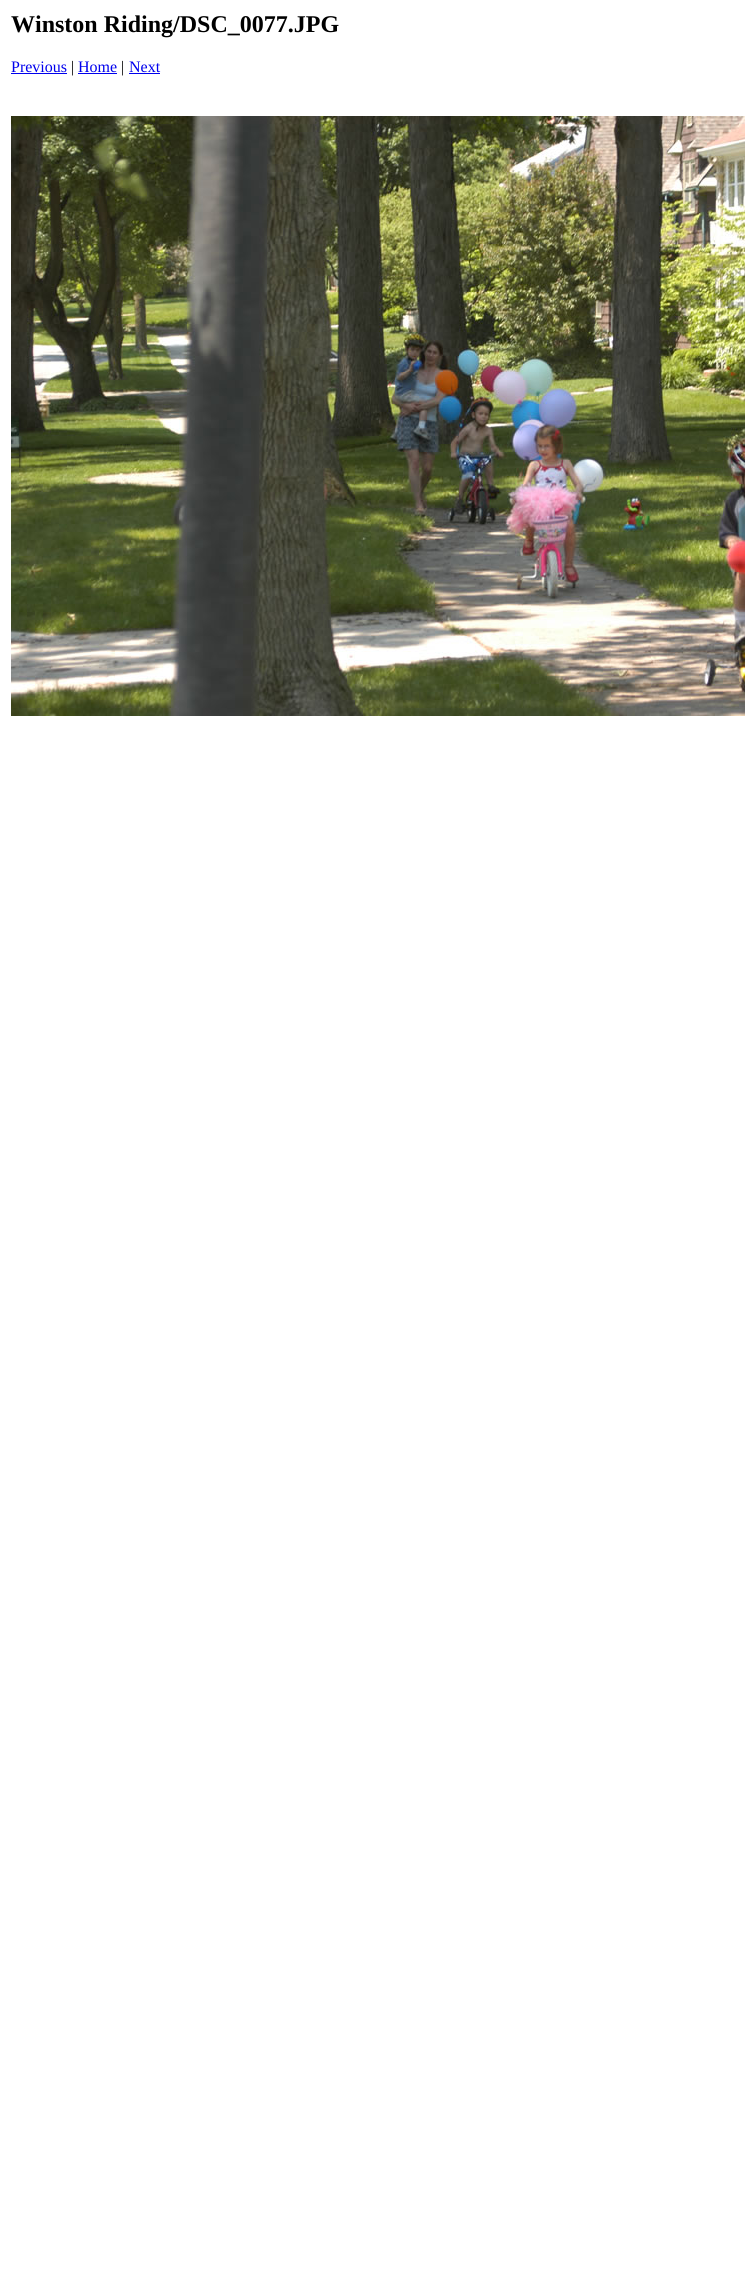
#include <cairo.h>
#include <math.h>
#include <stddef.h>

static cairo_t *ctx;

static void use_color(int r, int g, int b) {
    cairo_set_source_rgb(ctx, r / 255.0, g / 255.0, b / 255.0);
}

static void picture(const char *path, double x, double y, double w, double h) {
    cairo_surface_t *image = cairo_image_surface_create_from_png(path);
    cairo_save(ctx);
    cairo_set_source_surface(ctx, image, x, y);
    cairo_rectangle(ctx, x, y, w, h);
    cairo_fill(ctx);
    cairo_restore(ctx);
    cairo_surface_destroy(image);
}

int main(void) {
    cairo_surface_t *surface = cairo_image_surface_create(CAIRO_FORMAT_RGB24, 745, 2288);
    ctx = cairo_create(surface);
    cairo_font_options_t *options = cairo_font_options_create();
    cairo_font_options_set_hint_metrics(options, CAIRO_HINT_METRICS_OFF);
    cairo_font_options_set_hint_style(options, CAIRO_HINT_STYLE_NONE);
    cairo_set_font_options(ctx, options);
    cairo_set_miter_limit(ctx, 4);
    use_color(255, 255, 255);
    cairo_paint(ctx);
    cairo_select_font_face(ctx, "Liberation Serif", CAIRO_FONT_SLANT_NORMAL, CAIRO_FONT_WEIGHT_BOLD);
    cairo_set_font_size(ctx, 24);
    use_color(0, 0, 0);
    cairo_move_to(ctx, 11, 32);
    cairo_show_text(ctx, "Winston Riding/DSC_0077.JPG");
    cairo_select_font_face(ctx, "Liberation Serif", CAIRO_FONT_SLANT_NORMAL, CAIRO_FONT_WEIGHT_NORMAL);
    cairo_set_font_size(ctx, 16);
    use_color(0, 0, 238);
    cairo_move_to(ctx, 11, 72);
    cairo_show_text(ctx, "Previous");
    cairo_rectangle(ctx, 11, 73, 56, 1);
    cairo_fill(ctx);
    use_color(0, 0, 0);
    cairo_move_to(ctx, 71, 72);
    cairo_show_text(ctx, "|");
    use_color(0, 0, 238);
    cairo_move_to(ctx, 78, 72);
    cairo_show_text(ctx, "Home");
    cairo_rectangle(ctx, 78, 73, 39, 1);
    cairo_fill(ctx);
    use_color(0, 0, 0);
    cairo_move_to(ctx, 121, 72);
    cairo_show_text(ctx, "|");
    use_color(0, 0, 238);
    cairo_move_to(ctx, 129, 72);
    cairo_show_text(ctx, "Next");
    cairo_rectangle(ctx, 129, 73, 31, 1);
    cairo_fill(ctx);
    picture("img1.png", 11, 116, 734, 600);
    cairo_surface_write_to_png(surface, "result.png");
    cairo_font_options_destroy(options);
    cairo_destroy(ctx);
    cairo_surface_destroy(surface);
    return 0;
}
